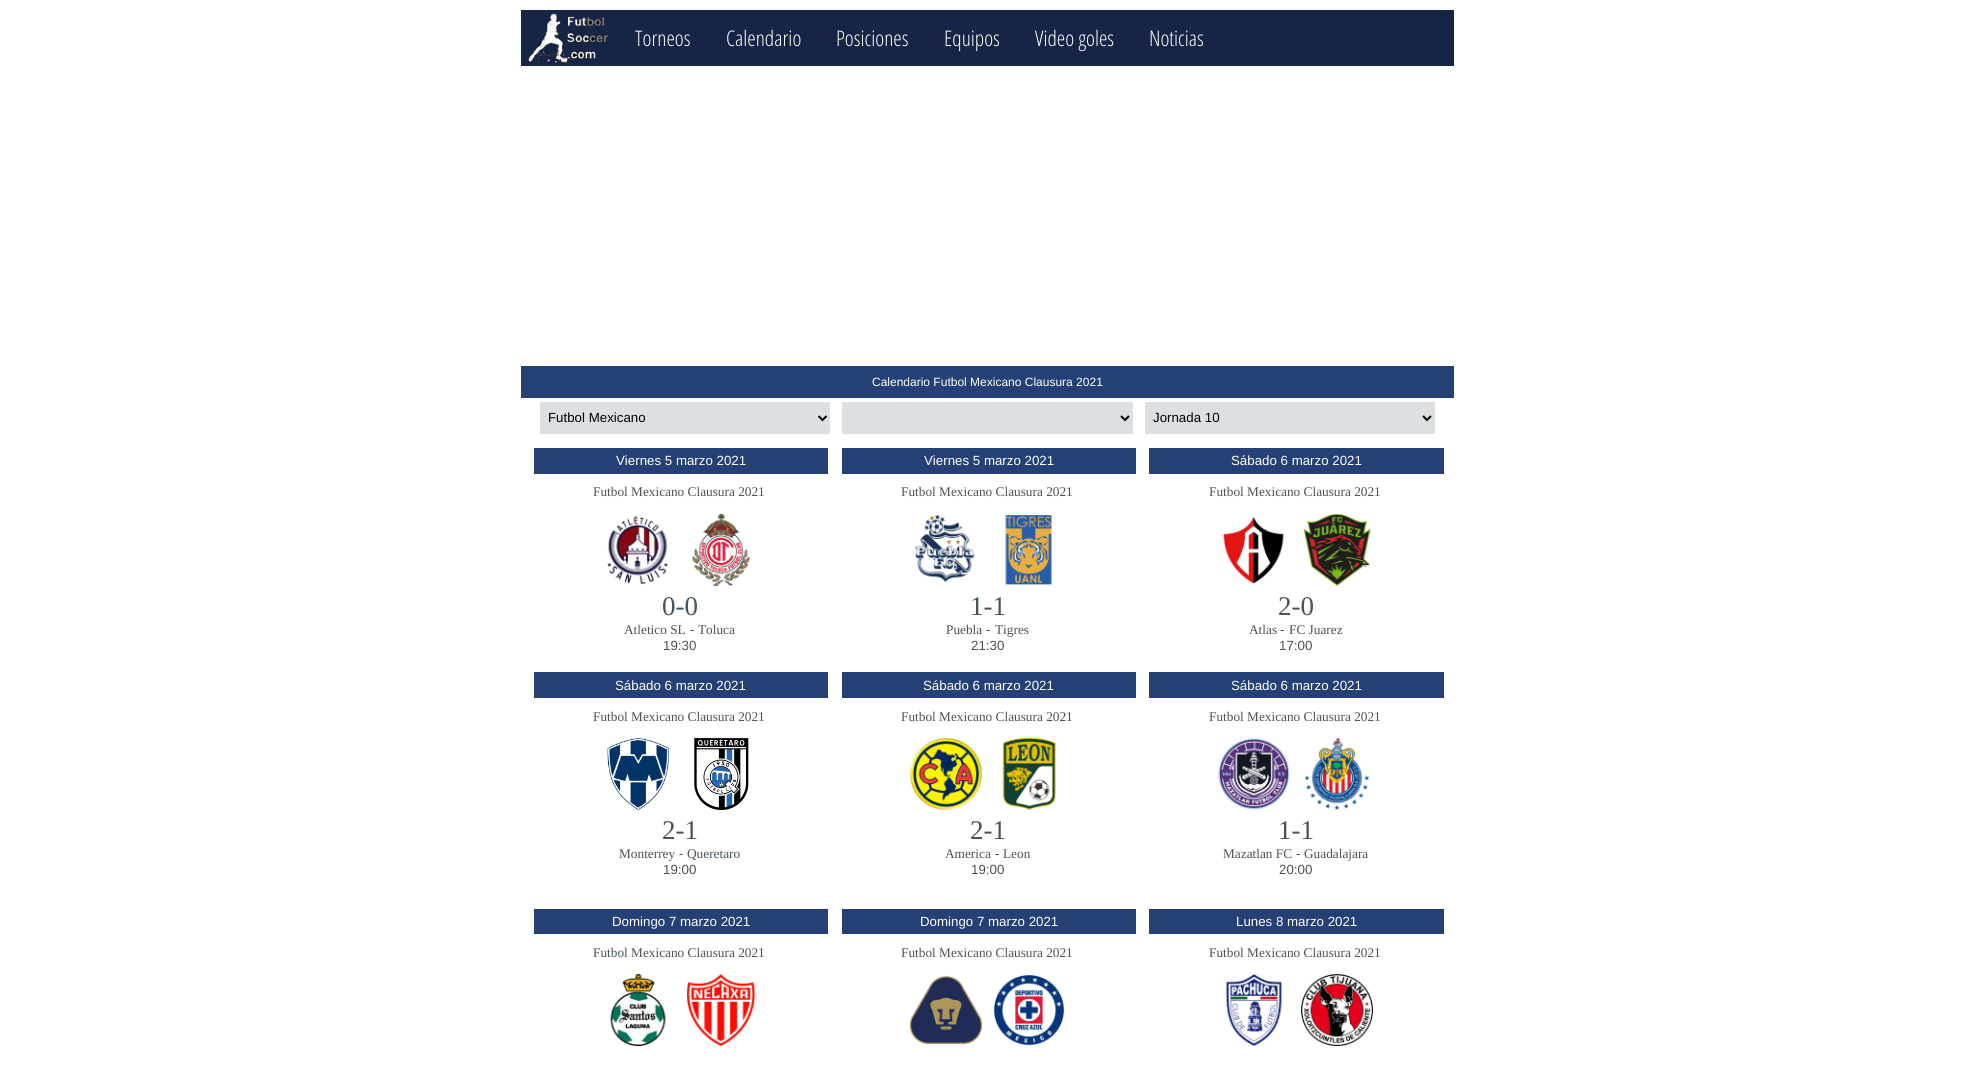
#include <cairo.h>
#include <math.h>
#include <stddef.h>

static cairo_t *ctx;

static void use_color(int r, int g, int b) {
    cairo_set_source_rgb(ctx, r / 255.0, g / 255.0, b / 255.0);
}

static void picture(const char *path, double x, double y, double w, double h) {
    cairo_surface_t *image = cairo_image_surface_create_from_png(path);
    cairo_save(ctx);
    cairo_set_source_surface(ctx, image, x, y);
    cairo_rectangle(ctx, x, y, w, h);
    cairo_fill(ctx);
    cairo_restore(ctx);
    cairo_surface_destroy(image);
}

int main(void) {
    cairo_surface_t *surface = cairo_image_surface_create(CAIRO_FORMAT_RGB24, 1975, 1066);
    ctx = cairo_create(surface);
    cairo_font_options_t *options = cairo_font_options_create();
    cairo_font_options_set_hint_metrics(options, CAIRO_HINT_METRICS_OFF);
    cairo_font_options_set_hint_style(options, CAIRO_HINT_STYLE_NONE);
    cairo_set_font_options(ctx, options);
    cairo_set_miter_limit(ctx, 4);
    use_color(255, 255, 255);
    cairo_paint(ctx);
    use_color(22, 37, 69);
    cairo_rectangle(ctx, 521, 10, 933, 56);
    cairo_fill(ctx);
    picture("img1.png", 528, 13, 81, 50);
    cairo_select_font_face(ctx, "Open Sans Condensed Light", CAIRO_FONT_SLANT_NORMAL, CAIRO_FONT_WEIGHT_NORMAL);
    cairo_set_font_size(ctx, 21.5);
    use_color(255, 255, 255);
    cairo_move_to(ctx, 635, 46);
    cairo_show_text(ctx, "Torneos");
    cairo_move_to(ctx, 726, 46);
    cairo_show_text(ctx, "Calendario");
    cairo_move_to(ctx, 836, 46);
    cairo_show_text(ctx, "Posiciones");
    cairo_move_to(ctx, 944, 46);
    cairo_show_text(ctx, "Equipos");
    cairo_move_to(ctx, 1035, 46);
    cairo_show_text(ctx, "Video goles");
    cairo_move_to(ctx, 1149, 46);
    cairo_show_text(ctx, "Noticias");
    use_color(37, 64, 117);
    cairo_rectangle(ctx, 521, 366, 933, 32);
    cairo_fill(ctx);
    cairo_select_font_face(ctx, "Liberation Sans", CAIRO_FONT_SLANT_NORMAL, CAIRO_FONT_WEIGHT_NORMAL);
    cairo_set_font_size(ctx, 12);
    use_color(255, 255, 255);
    cairo_move_to(ctx, 872, 386);
    cairo_show_text(ctx, "Calendario Futbol Mexicano Clausura 2021");
    use_color(221, 224, 227);
    cairo_rectangle(ctx, 540, 402, 290, 32);
    cairo_fill(ctx);
    cairo_new_path(ctx);
    cairo_move_to(ctx, 818.5, 416);
    cairo_line_to(ctx, 822.5, 420);
    cairo_line_to(ctx, 826.5, 416);
    use_color(0, 0, 0);
    cairo_stroke(ctx);
    cairo_set_font_size(ctx, 13.3);
    cairo_move_to(ctx, 548, 422);
    cairo_show_text(ctx, "Futbol Mexicano");
    use_color(221, 224, 227);
    cairo_rectangle(ctx, 842, 402, 291, 32);
    cairo_fill(ctx);
    cairo_new_path(ctx);
    cairo_move_to(ctx, 1121, 416);
    cairo_line_to(ctx, 1125, 420);
    cairo_line_to(ctx, 1129, 416);
    use_color(0, 0, 0);
    cairo_stroke(ctx);
    use_color(221, 224, 227);
    cairo_rectangle(ctx, 1145, 402, 290, 32);
    cairo_fill(ctx);
    cairo_new_path(ctx);
    cairo_move_to(ctx, 1423, 416);
    cairo_line_to(ctx, 1427, 420);
    cairo_line_to(ctx, 1431, 416);
    use_color(0, 0, 0);
    cairo_stroke(ctx);
    cairo_move_to(ctx, 1153, 422);
    cairo_show_text(ctx, "Jornada 10");
    use_color(37, 64, 117);
    cairo_rectangle(ctx, 534, 448, 294, 26);
    cairo_fill(ctx);
    use_color(255, 255, 255);
    cairo_move_to(ctx, 616, 465);
    cairo_show_text(ctx, "Viernes 5 marzo 2021");
    cairo_select_font_face(ctx, "Liberation Serif", CAIRO_FONT_SLANT_NORMAL, CAIRO_FONT_WEIGHT_NORMAL);
    use_color(71, 83, 91);
    cairo_move_to(ctx, 593, 496);
    cairo_show_text(ctx, "Futbol Mexicano Clausura 2021");
    picture("img2.png", 607, 515, 61, 70);
    picture("img3.png", 692, 514, 58, 72);
    cairo_set_font_size(ctx, 27);
    cairo_move_to(ctx, 662, 615);
    cairo_show_text(ctx, "0-0");
    cairo_set_font_size(ctx, 13.3);
    cairo_move_to(ctx, 624, 634);
    cairo_show_text(ctx, "Atletico SL");
    cairo_select_font_face(ctx, "Liberation Sans", CAIRO_FONT_SLANT_NORMAL, CAIRO_FONT_WEIGHT_NORMAL);
    cairo_move_to(ctx, 690, 634);
    cairo_show_text(ctx, "-");
    cairo_select_font_face(ctx, "Liberation Serif", CAIRO_FONT_SLANT_NORMAL, CAIRO_FONT_WEIGHT_NORMAL);
    cairo_move_to(ctx, 698, 634);
    cairo_show_text(ctx, "Toluca");
    cairo_select_font_face(ctx, "Liberation Sans", CAIRO_FONT_SLANT_NORMAL, CAIRO_FONT_WEIGHT_NORMAL);
    cairo_move_to(ctx, 663, 650);
    cairo_show_text(ctx, "19:30");
    use_color(37, 64, 117);
    cairo_rectangle(ctx, 842, 448, 294, 26);
    cairo_fill(ctx);
    use_color(255, 255, 255);
    cairo_move_to(ctx, 924, 465);
    cairo_show_text(ctx, "Viernes 5 marzo 2021");
    cairo_select_font_face(ctx, "Liberation Serif", CAIRO_FONT_SLANT_NORMAL, CAIRO_FONT_WEIGHT_NORMAL);
    use_color(71, 83, 91);
    cairo_move_to(ctx, 901, 496);
    cairo_show_text(ctx, "Futbol Mexicano Clausura 2021");
    picture("img4.png", 914, 514, 61, 69);
    picture("img5.png", 1005, 515, 47, 71);
    cairo_set_font_size(ctx, 27);
    cairo_move_to(ctx, 970, 615);
    cairo_show_text(ctx, "1-1");
    cairo_set_font_size(ctx, 13.3);
    cairo_move_to(ctx, 946, 634);
    cairo_show_text(ctx, "Puebla");
    cairo_select_font_face(ctx, "Liberation Sans", CAIRO_FONT_SLANT_NORMAL, CAIRO_FONT_WEIGHT_NORMAL);
    cairo_move_to(ctx, 986, 634);
    cairo_show_text(ctx, "-");
    cairo_select_font_face(ctx, "Liberation Serif", CAIRO_FONT_SLANT_NORMAL, CAIRO_FONT_WEIGHT_NORMAL);
    cairo_move_to(ctx, 995, 634);
    cairo_show_text(ctx, "Tigres");
    cairo_select_font_face(ctx, "Liberation Sans", CAIRO_FONT_SLANT_NORMAL, CAIRO_FONT_WEIGHT_NORMAL);
    cairo_move_to(ctx, 971, 650);
    cairo_show_text(ctx, "21:30");
    use_color(37, 64, 117);
    cairo_rectangle(ctx, 1149, 448, 295, 26);
    cairo_fill(ctx);
    use_color(255, 255, 255);
    cairo_move_to(ctx, 1231, 465);
    cairo_show_text(ctx, "Sábado 6 marzo 2021");
    cairo_select_font_face(ctx, "Liberation Serif", CAIRO_FONT_SLANT_NORMAL, CAIRO_FONT_WEIGHT_NORMAL);
    use_color(71, 83, 91);
    cairo_move_to(ctx, 1209, 496);
    cairo_show_text(ctx, "Futbol Mexicano Clausura 2021");
    picture("img6.png", 1223, 517, 61, 67);
    picture("img7.png", 1303, 514, 68, 72);
    cairo_set_font_size(ctx, 27);
    cairo_move_to(ctx, 1278, 615);
    cairo_show_text(ctx, "2-0");
    cairo_set_font_size(ctx, 13.3);
    cairo_move_to(ctx, 1249, 634);
    cairo_show_text(ctx, "Atlas");
    cairo_select_font_face(ctx, "Liberation Sans", CAIRO_FONT_SLANT_NORMAL, CAIRO_FONT_WEIGHT_NORMAL);
    cairo_move_to(ctx, 1280, 634);
    cairo_show_text(ctx, "-");
    cairo_select_font_face(ctx, "Liberation Serif", CAIRO_FONT_SLANT_NORMAL, CAIRO_FONT_WEIGHT_NORMAL);
    cairo_move_to(ctx, 1289, 634);
    cairo_show_text(ctx, "FC Juarez");
    cairo_select_font_face(ctx, "Liberation Sans", CAIRO_FONT_SLANT_NORMAL, CAIRO_FONT_WEIGHT_NORMAL);
    cairo_move_to(ctx, 1279, 650);
    cairo_show_text(ctx, "17:00");
    use_color(37, 64, 117);
    cairo_rectangle(ctx, 534, 672, 294, 26);
    cairo_fill(ctx);
    use_color(255, 255, 255);
    cairo_move_to(ctx, 615, 690);
    cairo_show_text(ctx, "Sábado 6 marzo 2021");
    cairo_select_font_face(ctx, "Liberation Serif", CAIRO_FONT_SLANT_NORMAL, CAIRO_FONT_WEIGHT_NORMAL);
    use_color(71, 83, 91);
    cairo_move_to(ctx, 593, 721);
    cairo_show_text(ctx, "Futbol Mexicano Clausura 2021");
    picture("img8.png", 607, 738, 62, 72);
    picture("img9.png", 694, 738, 55, 72);
    cairo_set_font_size(ctx, 27);
    cairo_move_to(ctx, 662, 839);
    cairo_show_text(ctx, "2-1");
    cairo_set_font_size(ctx, 13.3);
    cairo_move_to(ctx, 619, 858);
    cairo_show_text(ctx, "Monterrey");
    cairo_select_font_face(ctx, "Liberation Sans", CAIRO_FONT_SLANT_NORMAL, CAIRO_FONT_WEIGHT_NORMAL);
    cairo_move_to(ctx, 679, 858);
    cairo_show_text(ctx, "-");
    cairo_select_font_face(ctx, "Liberation Serif", CAIRO_FONT_SLANT_NORMAL, CAIRO_FONT_WEIGHT_NORMAL);
    cairo_move_to(ctx, 687, 858);
    cairo_show_text(ctx, "Queretaro");
    cairo_select_font_face(ctx, "Liberation Sans", CAIRO_FONT_SLANT_NORMAL, CAIRO_FONT_WEIGHT_NORMAL);
    cairo_move_to(ctx, 663, 874);
    cairo_show_text(ctx, "19:00");
    use_color(37, 64, 117);
    cairo_rectangle(ctx, 842, 672, 294, 26);
    cairo_fill(ctx);
    use_color(255, 255, 255);
    cairo_move_to(ctx, 923, 690);
    cairo_show_text(ctx, "Sábado 6 marzo 2021");
    cairo_select_font_face(ctx, "Liberation Serif", CAIRO_FONT_SLANT_NORMAL, CAIRO_FONT_WEIGHT_NORMAL);
    use_color(71, 83, 91);
    cairo_move_to(ctx, 901, 721);
    cairo_show_text(ctx, "Futbol Mexicano Clausura 2021");
    picture("img10.png", 910, 738, 72, 72);
    picture("img11.png", 1002, 738, 55, 72);
    cairo_set_font_size(ctx, 27);
    cairo_move_to(ctx, 970, 839);
    cairo_show_text(ctx, "2-1");
    cairo_set_font_size(ctx, 13.3);
    cairo_move_to(ctx, 945, 858);
    cairo_show_text(ctx, "America");
    cairo_select_font_face(ctx, "Liberation Sans", CAIRO_FONT_SLANT_NORMAL, CAIRO_FONT_WEIGHT_NORMAL);
    cairo_move_to(ctx, 995, 858);
    cairo_show_text(ctx, "-");
    cairo_select_font_face(ctx, "Liberation Serif", CAIRO_FONT_SLANT_NORMAL, CAIRO_FONT_WEIGHT_NORMAL);
    cairo_move_to(ctx, 1003, 858);
    cairo_show_text(ctx, "Leon");
    cairo_select_font_face(ctx, "Liberation Sans", CAIRO_FONT_SLANT_NORMAL, CAIRO_FONT_WEIGHT_NORMAL);
    cairo_move_to(ctx, 971, 874);
    cairo_show_text(ctx, "19:00");
    use_color(37, 64, 117);
    cairo_rectangle(ctx, 1149, 672, 295, 26);
    cairo_fill(ctx);
    use_color(255, 255, 255);
    cairo_move_to(ctx, 1231, 690);
    cairo_show_text(ctx, "Sábado 6 marzo 2021");
    cairo_select_font_face(ctx, "Liberation Serif", CAIRO_FONT_SLANT_NORMAL, CAIRO_FONT_WEIGHT_NORMAL);
    use_color(71, 83, 91);
    cairo_move_to(ctx, 1209, 721);
    cairo_show_text(ctx, "Futbol Mexicano Clausura 2021");
    picture("img12.png", 1218, 738, 72, 72);
    picture("img13.png", 1304, 738, 66, 72);
    cairo_set_font_size(ctx, 27);
    cairo_move_to(ctx, 1278, 839);
    cairo_show_text(ctx, "1-1");
    cairo_set_font_size(ctx, 13.3);
    cairo_move_to(ctx, 1223, 858);
    cairo_show_text(ctx, "Mazatlan FC");
    cairo_select_font_face(ctx, "Liberation Sans", CAIRO_FONT_SLANT_NORMAL, CAIRO_FONT_WEIGHT_NORMAL);
    cairo_move_to(ctx, 1296, 858);
    cairo_show_text(ctx, "-");
    cairo_select_font_face(ctx, "Liberation Serif", CAIRO_FONT_SLANT_NORMAL, CAIRO_FONT_WEIGHT_NORMAL);
    cairo_move_to(ctx, 1304, 858);
    cairo_show_text(ctx, "Guadalajara");
    cairo_select_font_face(ctx, "Liberation Sans", CAIRO_FONT_SLANT_NORMAL, CAIRO_FONT_WEIGHT_NORMAL);
    cairo_move_to(ctx, 1279, 874);
    cairo_show_text(ctx, "20:00");
    use_color(37, 64, 117);
    cairo_rectangle(ctx, 534, 909, 294, 25);
    cairo_fill(ctx);
    use_color(255, 255, 255);
    cairo_move_to(ctx, 612, 926);
    cairo_show_text(ctx, "Domingo 7 marzo 2021");
    cairo_select_font_face(ctx, "Liberation Serif", CAIRO_FONT_SLANT_NORMAL, CAIRO_FONT_WEIGHT_NORMAL);
    use_color(71, 83, 91);
    cairo_move_to(ctx, 593, 957);
    cairo_show_text(ctx, "Futbol Mexicano Clausura 2021");
    picture("img14.png", 610, 974, 56, 72);
    picture("img15.png", 686, 974, 70, 72);
    use_color(37, 64, 117);
    cairo_rectangle(ctx, 842, 909, 294, 25);
    cairo_fill(ctx);
    cairo_select_font_face(ctx, "Liberation Sans", CAIRO_FONT_SLANT_NORMAL, CAIRO_FONT_WEIGHT_NORMAL);
    use_color(255, 255, 255);
    cairo_move_to(ctx, 920, 926);
    cairo_show_text(ctx, "Domingo 7 marzo 2021");
    cairo_select_font_face(ctx, "Liberation Serif", CAIRO_FONT_SLANT_NORMAL, CAIRO_FONT_WEIGHT_NORMAL);
    use_color(71, 83, 91);
    cairo_move_to(ctx, 901, 957);
    cairo_show_text(ctx, "Futbol Mexicano Clausura 2021");
    picture("img16.png", 910, 975, 72, 70);
    picture("img17.png", 994, 975, 71, 71);
    use_color(37, 64, 117);
    cairo_rectangle(ctx, 1149, 909, 295, 25);
    cairo_fill(ctx);
    cairo_select_font_face(ctx, "Liberation Sans", CAIRO_FONT_SLANT_NORMAL, CAIRO_FONT_WEIGHT_NORMAL);
    use_color(255, 255, 255);
    cairo_move_to(ctx, 1236, 926);
    cairo_show_text(ctx, "Lunes 8 marzo 2021");
    cairo_select_font_face(ctx, "Liberation Serif", CAIRO_FONT_SLANT_NORMAL, CAIRO_FONT_WEIGHT_NORMAL);
    use_color(71, 83, 91);
    cairo_move_to(ctx, 1209, 957);
    cairo_show_text(ctx, "Futbol Mexicano Clausura 2021");
    picture("img18.png", 1225, 974, 57, 72);
    picture("img19.png", 1301, 974, 72, 72);
    cairo_surface_write_to_png(surface, "result.png");
    cairo_font_options_destroy(options);
    cairo_destroy(ctx);
    cairo_surface_destroy(surface);
    return 0;
}
